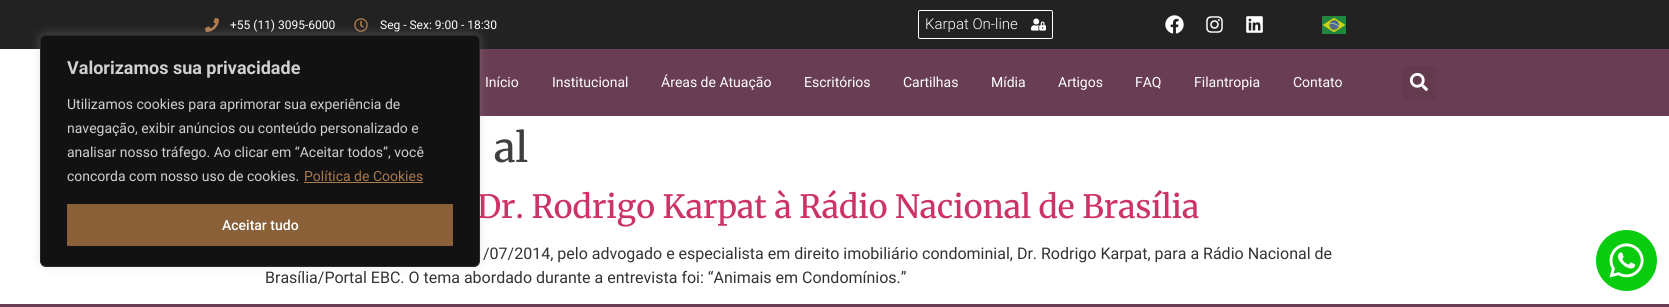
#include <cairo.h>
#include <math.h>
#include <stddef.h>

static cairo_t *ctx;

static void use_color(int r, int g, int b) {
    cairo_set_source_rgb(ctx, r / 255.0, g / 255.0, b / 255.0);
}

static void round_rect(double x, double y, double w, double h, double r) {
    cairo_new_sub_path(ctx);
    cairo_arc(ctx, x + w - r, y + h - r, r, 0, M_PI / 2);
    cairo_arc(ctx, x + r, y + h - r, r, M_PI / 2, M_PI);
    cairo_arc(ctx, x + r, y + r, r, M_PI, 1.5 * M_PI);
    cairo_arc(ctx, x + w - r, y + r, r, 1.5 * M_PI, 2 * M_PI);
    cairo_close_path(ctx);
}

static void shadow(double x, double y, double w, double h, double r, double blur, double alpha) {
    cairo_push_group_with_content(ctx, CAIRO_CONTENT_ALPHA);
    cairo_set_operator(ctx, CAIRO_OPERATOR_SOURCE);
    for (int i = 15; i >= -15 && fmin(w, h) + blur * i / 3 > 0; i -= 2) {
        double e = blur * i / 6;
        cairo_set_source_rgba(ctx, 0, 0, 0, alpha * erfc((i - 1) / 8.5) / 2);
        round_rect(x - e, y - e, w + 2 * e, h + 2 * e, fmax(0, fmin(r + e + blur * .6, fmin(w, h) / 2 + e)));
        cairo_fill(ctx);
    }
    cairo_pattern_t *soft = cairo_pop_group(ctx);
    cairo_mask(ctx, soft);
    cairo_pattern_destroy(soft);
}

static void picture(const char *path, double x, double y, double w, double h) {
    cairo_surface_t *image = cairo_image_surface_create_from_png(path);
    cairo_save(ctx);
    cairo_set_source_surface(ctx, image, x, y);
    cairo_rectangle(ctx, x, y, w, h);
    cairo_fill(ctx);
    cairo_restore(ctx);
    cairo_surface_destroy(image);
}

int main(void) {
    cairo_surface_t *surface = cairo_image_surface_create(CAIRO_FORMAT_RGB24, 1669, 307);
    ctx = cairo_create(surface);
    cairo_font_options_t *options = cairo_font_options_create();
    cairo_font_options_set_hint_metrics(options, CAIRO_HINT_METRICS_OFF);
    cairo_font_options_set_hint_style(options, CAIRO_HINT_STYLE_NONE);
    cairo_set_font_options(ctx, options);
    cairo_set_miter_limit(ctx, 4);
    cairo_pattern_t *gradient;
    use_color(255, 255, 255);
    cairo_paint(ctx);
    use_color(34, 34, 34);
    cairo_rectangle(ctx, 0, 0, 1669, 49);
    cairo_fill(ctx);
    picture("img1.png", 205, 18, 14, 14);
    cairo_select_font_face(ctx, "Roboto", CAIRO_FONT_SLANT_NORMAL, CAIRO_FONT_WEIGHT_NORMAL);
    cairo_set_font_size(ctx, 12);
    use_color(255, 255, 255);
    cairo_move_to(ctx, 230, 29);
    cairo_show_text(ctx, "+55 (11) 3095-6000");
    picture("img2.png", 354, 18, 14, 14);
    cairo_move_to(ctx, 380, 29);
    cairo_show_text(ctx, "Seg - Sex: 9:00 - 18:30");
    round_rect(918.5, 10.5, 134, 28, 1.5);
    cairo_set_line_width(ctx, 1);
    cairo_stroke(ctx);
    cairo_select_font_face(ctx, "Roboto Light", CAIRO_FONT_SLANT_NORMAL, CAIRO_FONT_WEIGHT_NORMAL);
    cairo_set_font_size(ctx, 15);
    cairo_move_to(ctx, 925, 29);
    cairo_show_text(ctx, "Karpat On-line");
    picture("img3.png", 1031, 18, 15, 13);
    picture("img4.png", 1165, 15, 19, 19);
    picture("img5.png", 1206, 16, 17, 17);
    picture("img6.png", 1246, 16, 17, 17);
    picture("img7.png", 1322, 16, 24, 18);
    gradient = cairo_pattern_create_linear(136, -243, 1533, 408);
    cairo_pattern_add_color_stop_rgba(gradient, 0.13, 1, 1, 1, 1);
    cairo_pattern_add_color_stop_rgba(gradient, 0.13, 0.412, 0.239, 0.325, 1);
    cairo_set_source(ctx, gradient);
    cairo_pattern_destroy(gradient);
    cairo_rectangle(ctx, 190, 49, 1479, 67);
    cairo_fill(ctx);
    cairo_select_font_face(ctx, "Roboto", CAIRO_FONT_SLANT_NORMAL, CAIRO_FONT_WEIGHT_NORMAL);
    cairo_set_font_size(ctx, 14);
    use_color(255, 255, 255);
    cairo_move_to(ctx, 485, 87);
    cairo_show_text(ctx, "Início");
    cairo_move_to(ctx, 552, 87);
    cairo_show_text(ctx, "Institucional");
    cairo_move_to(ctx, 661, 87);
    cairo_show_text(ctx, "Áreas de Atuação");
    cairo_move_to(ctx, 804, 87);
    cairo_show_text(ctx, "Escritórios");
    cairo_move_to(ctx, 903, 87);
    cairo_show_text(ctx, "Cartilhas");
    cairo_move_to(ctx, 991, 87);
    cairo_show_text(ctx, "Mídia");
    cairo_move_to(ctx, 1058, 87);
    cairo_show_text(ctx, "Artigos");
    cairo_move_to(ctx, 1135, 87);
    cairo_show_text(ctx, "FAQ");
    cairo_move_to(ctx, 1194, 87);
    cairo_show_text(ctx, "Filantropia");
    cairo_move_to(ctx, 1293, 87);
    cairo_show_text(ctx, "Contato");
    use_color(100, 58, 79);
    round_rect(1403, 66, 33, 33, 3);
    cairo_fill(ctx);
    picture("img8.png", 1410, 73, 18, 18);
    use_color(172, 171, 171);
    shadow(40, 34, 440, 232, 6, 5, 0.3);
    cairo_select_font_face(ctx, "Merriweather Medium", CAIRO_FONT_SLANT_NORMAL, CAIRO_FONT_WEIGHT_NORMAL);
    cairo_set_font_size(ctx, 32);
    use_color(204, 51, 102);
    cairo_move_to(ctx, 477, 218);
    cairo_show_text(ctx, "Dr. Rodrigo Karpat à Rádio Nacional de Brasília");
    use_color(18, 18, 18);
    round_rect(40.5, 35.5, 439, 231, 5.5);
    cairo_fill_preserve(ctx);
    use_color(42, 42, 42);
    cairo_stroke(ctx);
    cairo_select_font_face(ctx, "Roboto", CAIRO_FONT_SLANT_NORMAL, CAIRO_FONT_WEIGHT_BOLD);
    cairo_set_font_size(ctx, 18);
    use_color(208, 208, 208);
    cairo_move_to(ctx, 67, 74);
    cairo_show_text(ctx, "Valorizamos sua privacidade");
    cairo_select_font_face(ctx, "Roboto", CAIRO_FONT_SLANT_NORMAL, CAIRO_FONT_WEIGHT_NORMAL);
    cairo_set_font_size(ctx, 14);
    cairo_move_to(ctx, 67, 109);
    cairo_show_text(ctx, "Utilizamos cookies para aprimorar sua experiência de");
    cairo_move_to(ctx, 67, 133);
    cairo_show_text(ctx, "navegação, exibir anúncios ou conteúdo personalizado e");
    cairo_move_to(ctx, 67, 157);
    cairo_show_text(ctx, "analisar nosso tráfego. Ao clicar em “Aceitar todos”, você");
    cairo_move_to(ctx, 67, 181);
    cairo_show_text(ctx, "concorda com nosso uso de cookies.");
    use_color(170, 121, 75);
    cairo_move_to(ctx, 304, 181);
    cairo_show_text(ctx, "Política de Cookies");
    cairo_rectangle(ctx, 304, 182, 119, 1);
    cairo_fill(ctx);
    use_color(138, 96, 56);
    round_rect(67.5, 204.5, 385, 41, 0.5);
    cairo_fill_preserve(ctx);
    cairo_stroke(ctx);
    cairo_select_font_face(ctx, "Roboto Medium", CAIRO_FONT_SLANT_NORMAL, CAIRO_FONT_WEIGHT_NORMAL);
    use_color(255, 255, 255);
    cairo_move_to(ctx, 222, 230);
    cairo_show_text(ctx, "Aceitar tudo");
    cairo_select_font_face(ctx, "Merriweather Medium", CAIRO_FONT_SLANT_NORMAL, CAIRO_FONT_WEIGHT_NORMAL);
    cairo_set_font_size(ctx, 40);
    use_color(63, 63, 63);
    cairo_move_to(ctx, 494, 162);
    cairo_show_text(ctx, "al");
    cairo_select_font_face(ctx, "Roboto", CAIRO_FONT_SLANT_NORMAL, CAIRO_FONT_WEIGHT_NORMAL);
    cairo_set_font_size(ctx, 16);
    use_color(51, 51, 51);
    cairo_move_to(ctx, 483, 259);
    cairo_show_text(ctx, "/07/2014, pelo advogado e especialista em direito imobiliário condominial, Dr. Rodrigo Karpat, para a Rádio Nacional de");
    cairo_move_to(ctx, 265, 283);
    cairo_show_text(ctx, "Brasília/Portal EBC. O tema abordado durante a entrevista foi: “Animais em Condomínios.”");
    use_color(10, 204, 14);
    cairo_new_path(ctx);
    cairo_arc(ctx, 1626.5, 260.5, 31.5, 0, 2 * M_PI);
    cairo_fill_preserve(ctx);
    use_color(255, 255, 255);
    cairo_set_line_width(ctx, 2);
    cairo_stroke(ctx);
    picture("img9.png", 1609, 243, 35, 35);
    use_color(105, 61, 83);
    cairo_rectangle(ctx, 0, 304, 1669, 3);
    cairo_fill(ctx);
    cairo_surface_write_to_png(surface, "result.png");
    cairo_font_options_destroy(options);
    cairo_destroy(ctx);
    cairo_surface_destroy(surface);
    return 0;
}
